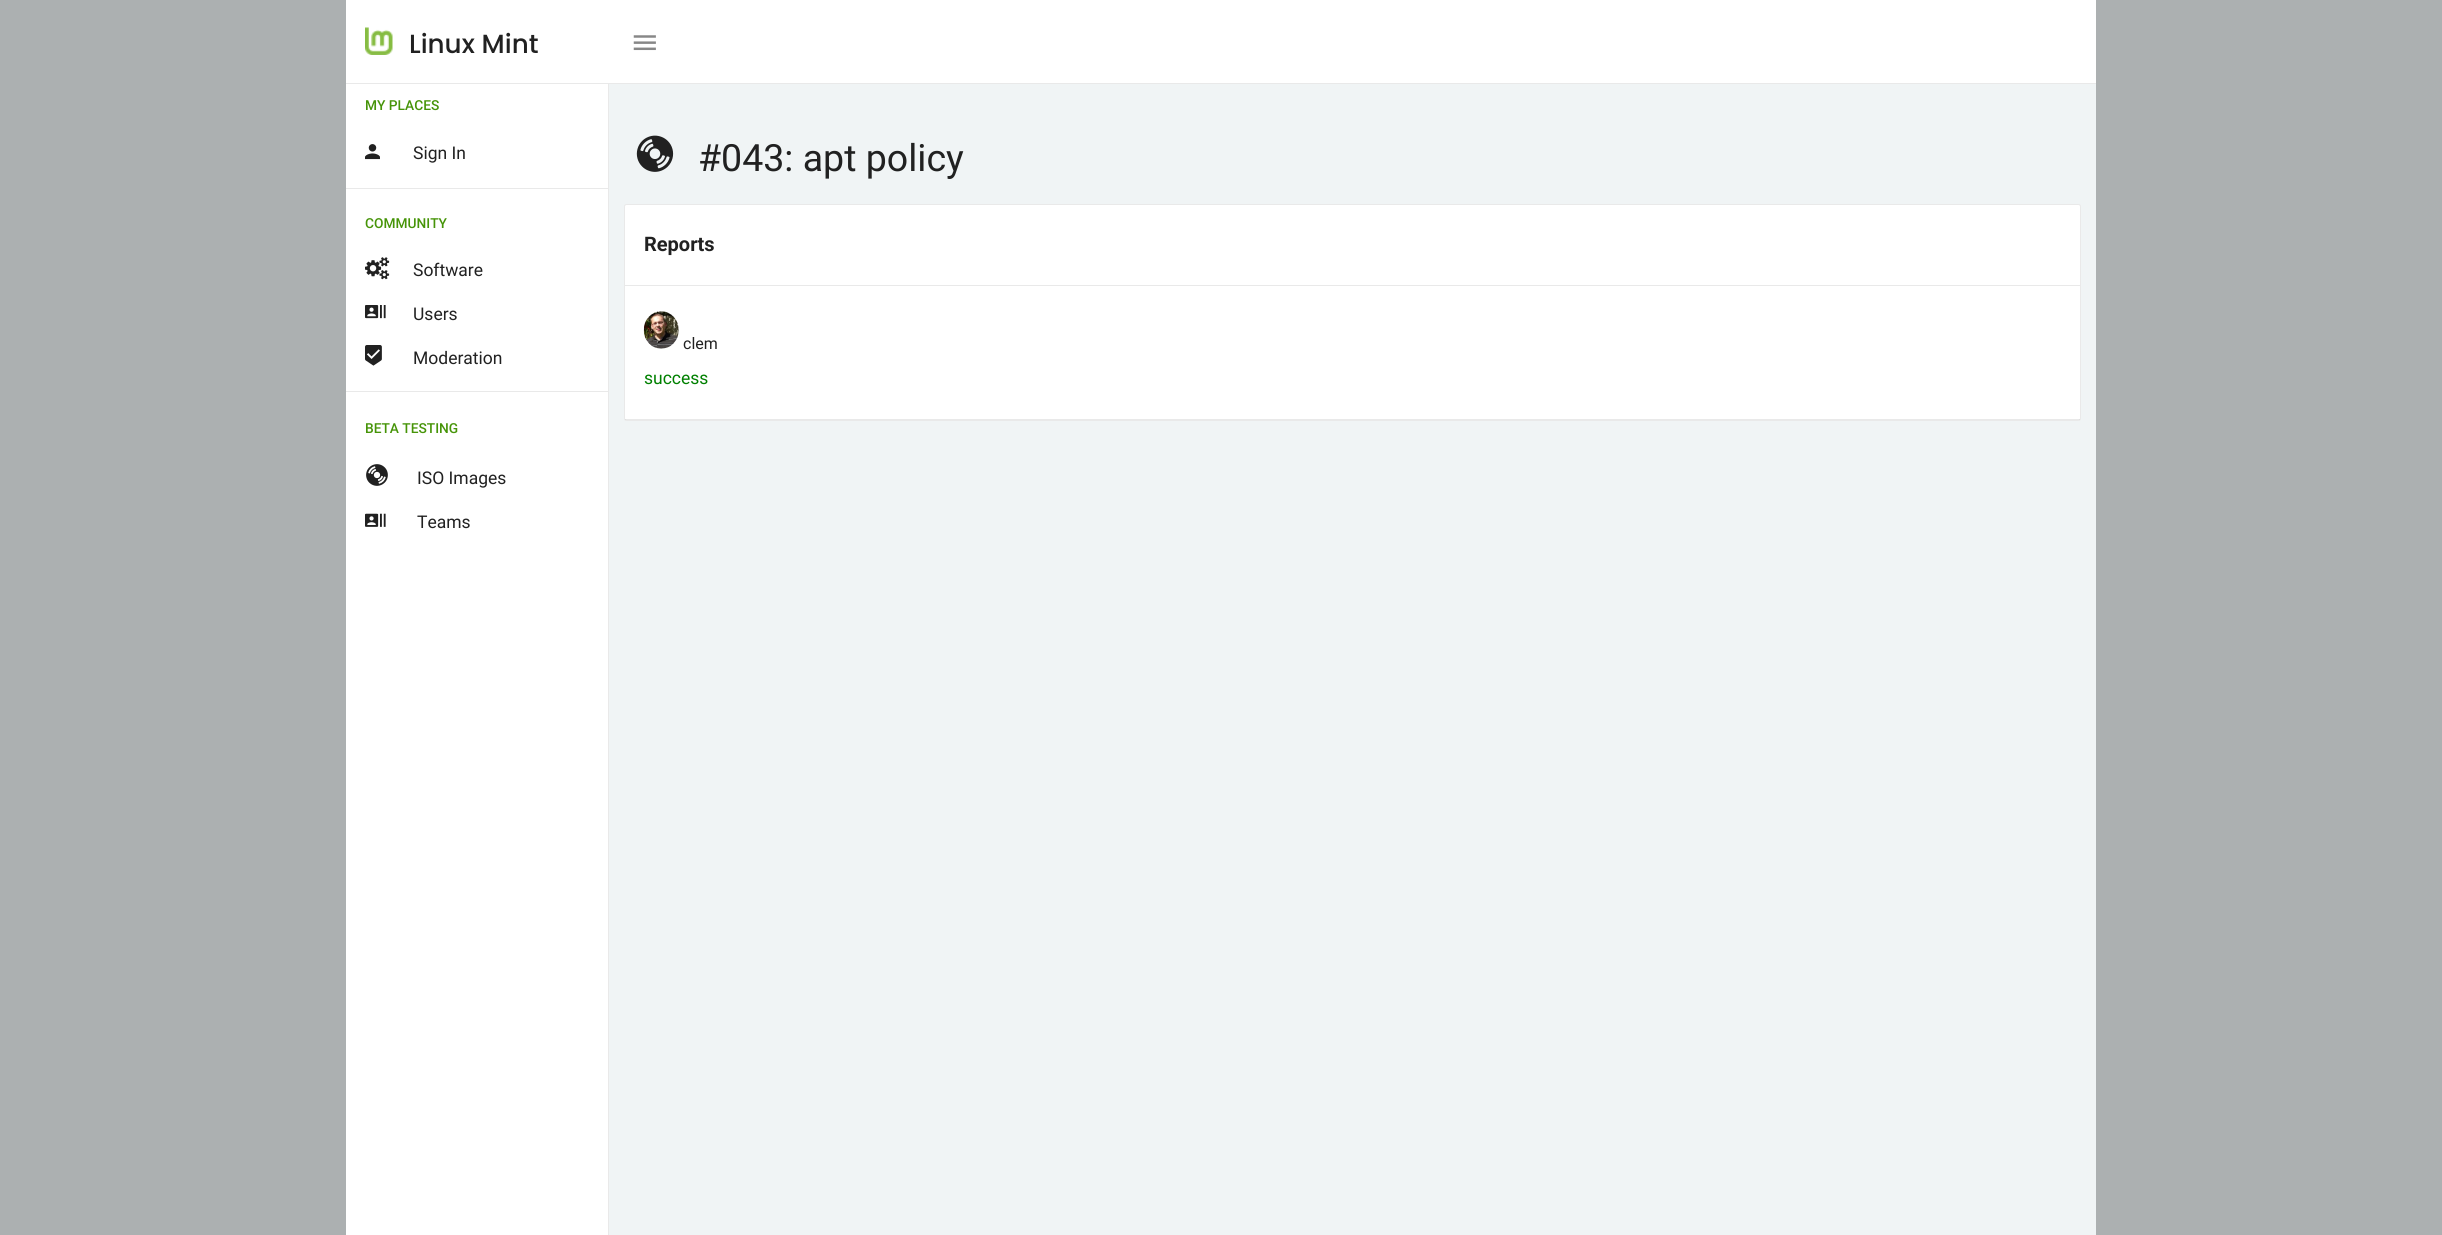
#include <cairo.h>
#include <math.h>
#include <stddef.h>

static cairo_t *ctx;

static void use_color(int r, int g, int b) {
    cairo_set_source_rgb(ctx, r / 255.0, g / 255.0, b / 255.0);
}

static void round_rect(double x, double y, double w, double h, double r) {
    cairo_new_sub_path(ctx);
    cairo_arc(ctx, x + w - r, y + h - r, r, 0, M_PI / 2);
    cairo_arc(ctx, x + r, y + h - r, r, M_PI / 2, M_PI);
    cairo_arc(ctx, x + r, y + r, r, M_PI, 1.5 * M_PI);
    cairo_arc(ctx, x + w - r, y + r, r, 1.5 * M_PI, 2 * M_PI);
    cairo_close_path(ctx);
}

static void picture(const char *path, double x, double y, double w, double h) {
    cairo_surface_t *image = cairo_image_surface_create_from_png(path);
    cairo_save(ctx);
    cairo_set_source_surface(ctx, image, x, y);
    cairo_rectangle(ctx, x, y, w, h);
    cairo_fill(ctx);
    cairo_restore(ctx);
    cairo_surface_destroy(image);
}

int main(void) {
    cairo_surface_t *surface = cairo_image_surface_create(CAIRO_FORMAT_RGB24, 2442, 1235);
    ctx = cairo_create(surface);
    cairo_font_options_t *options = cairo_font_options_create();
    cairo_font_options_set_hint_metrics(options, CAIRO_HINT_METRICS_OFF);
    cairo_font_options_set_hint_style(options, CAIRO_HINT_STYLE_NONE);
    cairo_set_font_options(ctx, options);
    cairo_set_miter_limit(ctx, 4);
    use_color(172, 176, 177);
    cairo_paint(ctx);
    use_color(255, 255, 255);
    cairo_rectangle(ctx, 346, 84, 262, 1151);
    cairo_fill(ctx);
    cairo_rectangle(ctx, 346, 0, 1750, 83);
    cairo_fill(ctx);
    use_color(233, 233, 233);
    cairo_rectangle(ctx, 608, 83, 1, 1152);
    cairo_fill(ctx);
    cairo_rectangle(ctx, 346, 83, 1750, 1);
    cairo_fill(ctx);
    picture("img1.png", 365, 27, 28, 28);
    cairo_select_font_face(ctx, "Poppins Medium", CAIRO_FONT_SLANT_NORMAL, CAIRO_FONT_WEIGHT_NORMAL);
    cairo_set_font_size(ctx, 26.25);
    use_color(33, 33, 33);
    cairo_move_to(ctx, 409, 53);
    cairo_show_text(ctx, "Linux Mint");
    picture("img2.png", 633, 35, 23, 16);
    cairo_select_font_face(ctx, "Roboto Medium", CAIRO_FONT_SLANT_NORMAL, CAIRO_FONT_WEIGHT_NORMAL);
    cairo_set_font_size(ctx, 13.75);
    use_color(70, 148, 8);
    cairo_move_to(ctx, 365, 110);
    cairo_show_text(ctx, "MY PLACES");
    picture("img3.png", 365, 144, 15, 16);
    cairo_select_font_face(ctx, "Roboto", CAIRO_FONT_SLANT_NORMAL, CAIRO_FONT_WEIGHT_NORMAL);
    cairo_set_font_size(ctx, 17.5);
    use_color(33, 33, 33);
    cairo_move_to(ctx, 413, 159);
    cairo_show_text(ctx, "Sign In");
    use_color(233, 233, 233);
    cairo_rectangle(ctx, 346, 188, 262, 1);
    cairo_fill(ctx);
    cairo_select_font_face(ctx, "Roboto Medium", CAIRO_FONT_SLANT_NORMAL, CAIRO_FONT_WEIGHT_NORMAL);
    cairo_set_font_size(ctx, 13.75);
    use_color(70, 148, 8);
    cairo_move_to(ctx, 365, 228);
    cairo_show_text(ctx, "COMMUNITY");
    picture("img4.png", 365, 257, 25, 23);
    cairo_select_font_face(ctx, "Roboto", CAIRO_FONT_SLANT_NORMAL, CAIRO_FONT_WEIGHT_NORMAL);
    cairo_set_font_size(ctx, 17.5);
    use_color(33, 33, 33);
    cairo_move_to(ctx, 413, 276);
    cairo_show_text(ctx, "Software");
    picture("img5.png", 365, 305, 21, 14);
    cairo_move_to(ctx, 413, 320);
    cairo_show_text(ctx, "Users");
    picture("img6.png", 365, 345, 17, 21);
    cairo_move_to(ctx, 413, 364);
    cairo_show_text(ctx, "Moderation");
    use_color(233, 233, 233);
    cairo_rectangle(ctx, 346, 391, 262, 1);
    cairo_fill(ctx);
    cairo_select_font_face(ctx, "Roboto Medium", CAIRO_FONT_SLANT_NORMAL, CAIRO_FONT_WEIGHT_NORMAL);
    cairo_set_font_size(ctx, 13.75);
    use_color(70, 148, 8);
    cairo_move_to(ctx, 365, 433);
    cairo_show_text(ctx, "BETA TESTING");
    picture("img7.png", 366, 464, 22, 22);
    cairo_select_font_face(ctx, "Roboto", CAIRO_FONT_SLANT_NORMAL, CAIRO_FONT_WEIGHT_NORMAL);
    cairo_set_font_size(ctx, 17.5);
    use_color(33, 33, 33);
    cairo_move_to(ctx, 417, 484);
    cairo_show_text(ctx, "ISO Images");
    picture("img8.png", 365, 513, 21, 14);
    cairo_move_to(ctx, 417, 528);
    cairo_show_text(ctx, "Teams");
    use_color(240, 244, 245);
    cairo_rectangle(ctx, 609, 84, 1487, 1151);
    cairo_fill(ctx);
    picture("img9.png", 636, 135, 38, 37);
    cairo_set_font_size(ctx, 37.5);
    use_color(33, 33, 33);
    cairo_move_to(ctx, 698, 171);
    cairo_show_text(ctx, "#043: apt policy");
    use_color(255, 255, 255);
    round_rect(624, 204, 1457, 217, 2.5);
    cairo_fill(ctx);
    round_rect(624.5, 204.5, 1456, 216, 2);
    cairo_set_source_rgba(ctx, 0.129, 0.129, 0.129, 0.1);
    cairo_set_line_width(ctx, 1);
    cairo_stroke(ctx);
    use_color(233, 233, 233);
    cairo_rectangle(ctx, 625, 285, 1455, 1);
    cairo_fill(ctx);
    cairo_select_font_face(ctx, "Roboto", CAIRO_FONT_SLANT_NORMAL, CAIRO_FONT_WEIGHT_BOLD);
    cairo_set_font_size(ctx, 20);
    use_color(33, 33, 33);
    cairo_move_to(ctx, 644, 251);
    cairo_show_text(ctx, "Reports");
    picture("img10.png", 643, 311, 36, 38);
    cairo_select_font_face(ctx, "Roboto", CAIRO_FONT_SLANT_NORMAL, CAIRO_FONT_WEIGHT_NORMAL);
    cairo_set_font_size(ctx, 16);
    cairo_move_to(ctx, 683, 349);
    cairo_show_text(ctx, "clem");
    cairo_set_font_size(ctx, 17.5);
    use_color(0, 128, 0);
    cairo_move_to(ctx, 644, 384);
    cairo_show_text(ctx, "success");
    cairo_set_source_rgba(ctx, 0.129, 0.129, 0.129, 0.1);
    cairo_rectangle(ctx, 625, 419, 1455, 1);
    cairo_fill(ctx);
    cairo_surface_write_to_png(surface, "result.png");
    cairo_font_options_destroy(options);
    cairo_destroy(ctx);
    cairo_surface_destroy(surface);
    return 0;
}
